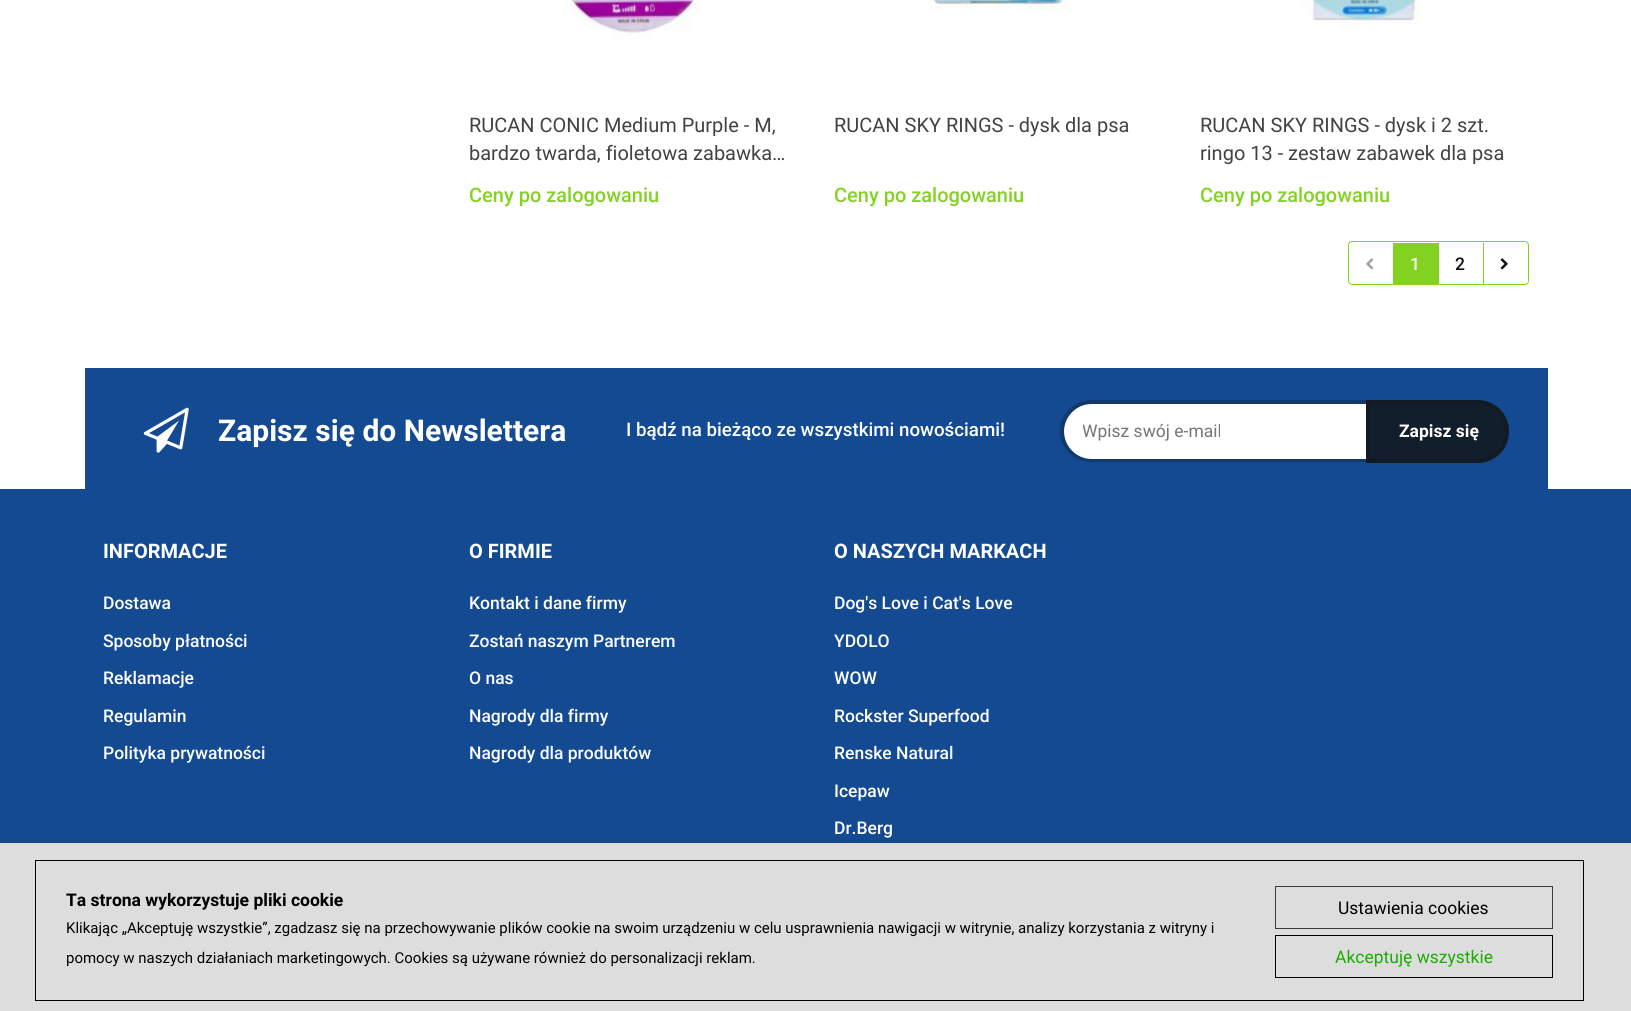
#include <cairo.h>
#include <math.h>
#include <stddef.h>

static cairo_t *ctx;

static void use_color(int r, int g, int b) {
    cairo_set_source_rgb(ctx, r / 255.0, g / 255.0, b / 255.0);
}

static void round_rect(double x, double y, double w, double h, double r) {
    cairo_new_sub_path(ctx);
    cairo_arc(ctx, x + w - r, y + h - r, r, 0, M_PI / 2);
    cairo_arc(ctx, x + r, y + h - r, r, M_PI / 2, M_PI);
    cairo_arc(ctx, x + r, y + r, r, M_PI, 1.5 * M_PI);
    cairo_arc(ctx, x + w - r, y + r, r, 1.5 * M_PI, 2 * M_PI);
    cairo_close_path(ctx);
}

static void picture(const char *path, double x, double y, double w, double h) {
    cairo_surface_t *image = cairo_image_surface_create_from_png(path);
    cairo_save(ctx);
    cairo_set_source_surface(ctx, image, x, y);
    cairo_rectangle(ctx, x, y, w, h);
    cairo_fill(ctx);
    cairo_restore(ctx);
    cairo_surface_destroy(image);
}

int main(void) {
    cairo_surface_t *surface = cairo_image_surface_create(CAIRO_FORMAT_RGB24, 1631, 1011);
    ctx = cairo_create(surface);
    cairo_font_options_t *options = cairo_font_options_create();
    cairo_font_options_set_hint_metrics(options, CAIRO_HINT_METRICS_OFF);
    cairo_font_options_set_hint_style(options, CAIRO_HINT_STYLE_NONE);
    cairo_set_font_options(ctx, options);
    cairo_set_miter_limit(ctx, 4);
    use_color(255, 255, 255);
    cairo_paint(ctx);
    picture("img1.png", 569, 0, 130, 40);
    cairo_select_font_face(ctx, "Roboto", CAIRO_FONT_SLANT_NORMAL, CAIRO_FONT_WEIGHT_NORMAL);
    cairo_set_font_size(ctx, 20);
    use_color(66, 66, 66);
    cairo_move_to(ctx, 469, 132);
    cairo_show_text(ctx, "RUCAN CONIC Medium Purple - M,");
    cairo_move_to(ctx, 469, 160);
    cairo_show_text(ctx, "bardzo twarda, fioletowa zabawka…");
    cairo_select_font_face(ctx, "Roboto Medium", CAIRO_FONT_SLANT_NORMAL, CAIRO_FONT_WEIGHT_NORMAL);
    use_color(131, 210, 34);
    cairo_move_to(ctx, 469, 202);
    cairo_show_text(ctx, "Ceny po zalogowaniu");
    picture("img2.png", 927, 0, 146, 11);
    cairo_select_font_face(ctx, "Roboto", CAIRO_FONT_SLANT_NORMAL, CAIRO_FONT_WEIGHT_NORMAL);
    use_color(66, 66, 66);
    cairo_move_to(ctx, 834, 132);
    cairo_show_text(ctx, "RUCAN SKY RINGS - dysk dla psa");
    cairo_select_font_face(ctx, "Roboto Medium", CAIRO_FONT_SLANT_NORMAL, CAIRO_FONT_WEIGHT_NORMAL);
    use_color(131, 210, 34);
    cairo_move_to(ctx, 834, 202);
    cairo_show_text(ctx, "Ceny po zalogowaniu");
    picture("img3.png", 1302, 0, 119, 30);
    cairo_select_font_face(ctx, "Roboto", CAIRO_FONT_SLANT_NORMAL, CAIRO_FONT_WEIGHT_NORMAL);
    use_color(66, 66, 66);
    cairo_move_to(ctx, 1200, 132);
    cairo_show_text(ctx, "RUCAN SKY RINGS - dysk i 2 szt.");
    cairo_move_to(ctx, 1200, 160);
    cairo_show_text(ctx, "ringo 13 - zestaw zabawek dla psa");
    cairo_select_font_face(ctx, "Roboto Medium", CAIRO_FONT_SLANT_NORMAL, CAIRO_FONT_WEIGHT_NORMAL);
    use_color(131, 210, 34);
    cairo_move_to(ctx, 1200, 202);
    cairo_show_text(ctx, "Ceny po zalogowaniu");
    round_rect(1348.5, 241.5, 180, 43, 3.5);
    cairo_set_line_width(ctx, 1);
    cairo_stroke(ctx);
    cairo_rectangle(ctx, 1393, 243, 1, 41);
    cairo_fill(ctx);
    picture("img4.png", 1366, 258, 8, 12);
    cairo_rectangle(ctx, 1394, 243, 45, 41);
    cairo_fill(ctx);
    cairo_set_font_size(ctx, 17.5);
    use_color(255, 255, 255);
    cairo_move_to(ctx, 1410, 270);
    cairo_show_text(ctx, "1");
    use_color(131, 210, 34);
    cairo_rectangle(ctx, 1483, 243, 1, 41);
    cairo_fill(ctx);
    use_color(19, 19, 19);
    cairo_move_to(ctx, 1455, 270);
    cairo_show_text(ctx, "2");
    picture("img5.png", 1500, 258, 8, 12);
    use_color(19, 74, 146);
    cairo_rectangle(ctx, 85, 368, 1463, 121);
    cairo_fill(ctx);
    picture("img6.png", 143, 407, 46, 46);
    cairo_select_font_face(ctx, "Roboto", CAIRO_FONT_SLANT_NORMAL, CAIRO_FONT_WEIGHT_BOLD);
    cairo_set_font_size(ctx, 30);
    use_color(255, 255, 255);
    cairo_move_to(ctx, 218, 441);
    cairo_show_text(ctx, "Zapisz się do Newslettera");
    cairo_select_font_face(ctx, "Roboto Medium", CAIRO_FONT_SLANT_NORMAL, CAIRO_FONT_WEIGHT_NORMAL);
    cairo_set_font_size(ctx, 18.75);
    cairo_move_to(ctx, 626, 436);
    cairo_show_text(ctx, "I bądź na bieżąco ze wszystkimi nowościami!");
    cairo_new_path(ctx);
    cairo_move_to(ctx, 1091.5, 404);
    cairo_line_to(ctx, 1366, 404);
    cairo_line_to(ctx, 1366, 459);
    cairo_line_to(ctx, 1091.5, 459);
    cairo_curve_to(ctx, 1076.5, 459, 1064, 446.5, 1064, 431.5);
    cairo_curve_to(ctx, 1064, 416.5, 1076.5, 404, 1091.5, 404);
    cairo_close_path(ctx);
    cairo_fill(ctx);
    cairo_set_source_rgba(ctx, 0.075, 0.075, 0.075, 0.3);
    cairo_set_fill_rule(ctx, CAIRO_FILL_RULE_EVEN_ODD);
    cairo_new_path(ctx);
    cairo_move_to(ctx, 1091, 400);
    cairo_line_to(ctx, 1366, 400);
    cairo_line_to(ctx, 1366, 462);
    cairo_line_to(ctx, 1091, 462);
    cairo_curve_to(ctx, 1074, 462, 1060, 449, 1060, 431);
    cairo_curve_to(ctx, 1060, 414, 1074, 400, 1091, 400);
    cairo_close_path(ctx);
    cairo_move_to(ctx, 1091, 404);
    cairo_line_to(ctx, 1366, 404);
    cairo_line_to(ctx, 1366, 459);
    cairo_line_to(ctx, 1091, 459);
    cairo_curve_to(ctx, 1076, 459, 1064, 446, 1064, 431);
    cairo_curve_to(ctx, 1064, 416, 1076, 404, 1091, 404);
    cairo_close_path(ctx);
    cairo_fill(ctx);
    cairo_save(ctx);
    cairo_set_fill_rule(ctx, CAIRO_FILL_RULE_WINDING);
    cairo_rectangle(ctx, 1083, 421, 265, 20);
    cairo_clip(ctx);
    cairo_select_font_face(ctx, "Roboto", CAIRO_FONT_SLANT_NORMAL, CAIRO_FONT_WEIGHT_NORMAL);
    cairo_set_font_size(ctx, 17.5);
    use_color(117, 117, 117);
    cairo_move_to(ctx, 1082, 437);
    cairo_show_text(ctx, "Wpisz swój e-mail");
    cairo_restore(ctx);
    use_color(19, 30, 44);
    cairo_new_path(ctx);
    cairo_move_to(ctx, 1366, 400);
    cairo_line_to(ctx, 1477.5, 400);
    cairo_curve_to(ctx, 1495, 400, 1509, 414, 1509, 431.5);
    cairo_curve_to(ctx, 1509, 449, 1495, 463, 1477.5, 463);
    cairo_line_to(ctx, 1366, 463);
    cairo_close_path(ctx);
    cairo_fill(ctx);
    cairo_new_path(ctx);
    cairo_move_to(ctx, 1368, 402);
    cairo_line_to(ctx, 1477.5, 402);
    cairo_curve_to(ctx, 1494, 402, 1507, 415, 1507, 431.5);
    cairo_curve_to(ctx, 1507, 448, 1494, 461, 1477.5, 461);
    cairo_line_to(ctx, 1368, 461);
    cairo_close_path(ctx);
    cairo_set_source_rgba(ctx, 0.075, 0.075, 0.075, 0.3);
    cairo_set_line_width(ctx, 4);
    cairo_stroke(ctx);
    cairo_select_font_face(ctx, "Roboto", CAIRO_FONT_SLANT_NORMAL, CAIRO_FONT_WEIGHT_BOLD);
    cairo_set_font_size(ctx, 17.5);
    use_color(255, 255, 255);
    cairo_move_to(ctx, 1399, 437);
    cairo_show_text(ctx, "Zapisz się");
    use_color(19, 74, 146);
    cairo_rectangle(ctx, 0, 489, 1631, 354);
    cairo_fill(ctx);
    cairo_set_font_size(ctx, 20);
    use_color(255, 255, 255);
    cairo_move_to(ctx, 103, 558);
    cairo_show_text(ctx, "INFORMACJE");
    cairo_select_font_face(ctx, "Roboto Medium", CAIRO_FONT_SLANT_NORMAL, CAIRO_FONT_WEIGHT_NORMAL);
    cairo_set_font_size(ctx, 17.5);
    cairo_move_to(ctx, 103, 609);
    cairo_show_text(ctx, "Dostawa");
    cairo_move_to(ctx, 103, 647);
    cairo_show_text(ctx, "Sposoby płatności");
    cairo_move_to(ctx, 103, 684);
    cairo_show_text(ctx, "Reklamacje");
    cairo_move_to(ctx, 103, 722);
    cairo_show_text(ctx, "Regulamin");
    cairo_move_to(ctx, 103, 759);
    cairo_show_text(ctx, "Polityka prywatności");
    cairo_select_font_face(ctx, "Roboto", CAIRO_FONT_SLANT_NORMAL, CAIRO_FONT_WEIGHT_BOLD);
    cairo_set_font_size(ctx, 20);
    cairo_move_to(ctx, 469, 558);
    cairo_show_text(ctx, "O FIRMIE");
    cairo_select_font_face(ctx, "Roboto Medium", CAIRO_FONT_SLANT_NORMAL, CAIRO_FONT_WEIGHT_NORMAL);
    cairo_set_font_size(ctx, 17.5);
    cairo_move_to(ctx, 469, 609);
    cairo_show_text(ctx, "Kontakt i dane firmy");
    cairo_move_to(ctx, 469, 647);
    cairo_show_text(ctx, "Zostań naszym Partnerem");
    cairo_move_to(ctx, 469, 684);
    cairo_show_text(ctx, "O nas");
    cairo_move_to(ctx, 469, 722);
    cairo_show_text(ctx, "Nagrody dla firmy");
    cairo_move_to(ctx, 469, 759);
    cairo_show_text(ctx, "Nagrody dla produktów");
    cairo_select_font_face(ctx, "Roboto", CAIRO_FONT_SLANT_NORMAL, CAIRO_FONT_WEIGHT_BOLD);
    cairo_set_font_size(ctx, 20);
    cairo_move_to(ctx, 834, 558);
    cairo_show_text(ctx, "O NASZYCH MARKACH");
    cairo_select_font_face(ctx, "Roboto Medium", CAIRO_FONT_SLANT_NORMAL, CAIRO_FONT_WEIGHT_NORMAL);
    cairo_set_font_size(ctx, 17.5);
    cairo_move_to(ctx, 834, 609);
    cairo_show_text(ctx, "Dog's Love i Cat's Love");
    cairo_move_to(ctx, 834, 647);
    cairo_show_text(ctx, "YDOLO");
    cairo_move_to(ctx, 834, 684);
    cairo_show_text(ctx, "WOW");
    cairo_move_to(ctx, 834, 722);
    cairo_show_text(ctx, "Rockster Superfood");
    cairo_move_to(ctx, 834, 759);
    cairo_show_text(ctx, "Renske Natural");
    cairo_move_to(ctx, 834, 797);
    cairo_show_text(ctx, "Icepaw");
    cairo_move_to(ctx, 834, 834);
    cairo_show_text(ctx, "Dr.Berg");
    use_color(221, 221, 221);
    cairo_rectangle(ctx, 0, 843, 1631, 168);
    cairo_fill(ctx);
    cairo_rectangle(ctx, 35.5, 860.5, 1548, 140);
    use_color(0, 0, 0);
    cairo_set_line_width(ctx, 1);
    cairo_stroke(ctx);
    cairo_select_font_face(ctx, "Roboto", CAIRO_FONT_SLANT_NORMAL, CAIRO_FONT_WEIGHT_BOLD);
    cairo_move_to(ctx, 66, 906);
    cairo_show_text(ctx, "Ta strona wykorzystuje pliki cookie");
    cairo_select_font_face(ctx, "Roboto", CAIRO_FONT_SLANT_NORMAL, CAIRO_FONT_WEIGHT_NORMAL);
    cairo_set_font_size(ctx, 15);
    cairo_move_to(ctx, 66, 933);
    cairo_show_text(ctx, "Klikając „Akceptuję wszystkie”, zgadzasz się na przechowywanie plików cookie na swoim urządzeniu w celu usprawnienia nawigacji w witrynie, analizy korzystania z witryny i");
    cairo_move_to(ctx, 66, 963);
    cairo_show_text(ctx, "pomocy w naszych działaniach marketingowych. Cookies są używane również do personalizacji reklam.");
    cairo_rectangle(ctx, 1275.5, 886.5, 277, 42);
    use_color(59, 59, 62);
    cairo_stroke(ctx);
    cairo_set_font_size(ctx, 17.5);
    use_color(0, 0, 0);
    cairo_move_to(ctx, 1338, 914);
    cairo_show_text(ctx, "Ustawienia cookies");
    cairo_rectangle(ctx, 1275.5, 935.5, 277, 42);
    cairo_stroke(ctx);
    use_color(25, 174, 0);
    cairo_move_to(ctx, 1335, 963);
    cairo_show_text(ctx, "Akceptuję wszystkie");
    cairo_surface_write_to_png(surface, "result.png");
    cairo_font_options_destroy(options);
    cairo_destroy(ctx);
    cairo_surface_destroy(surface);
    return 0;
}
